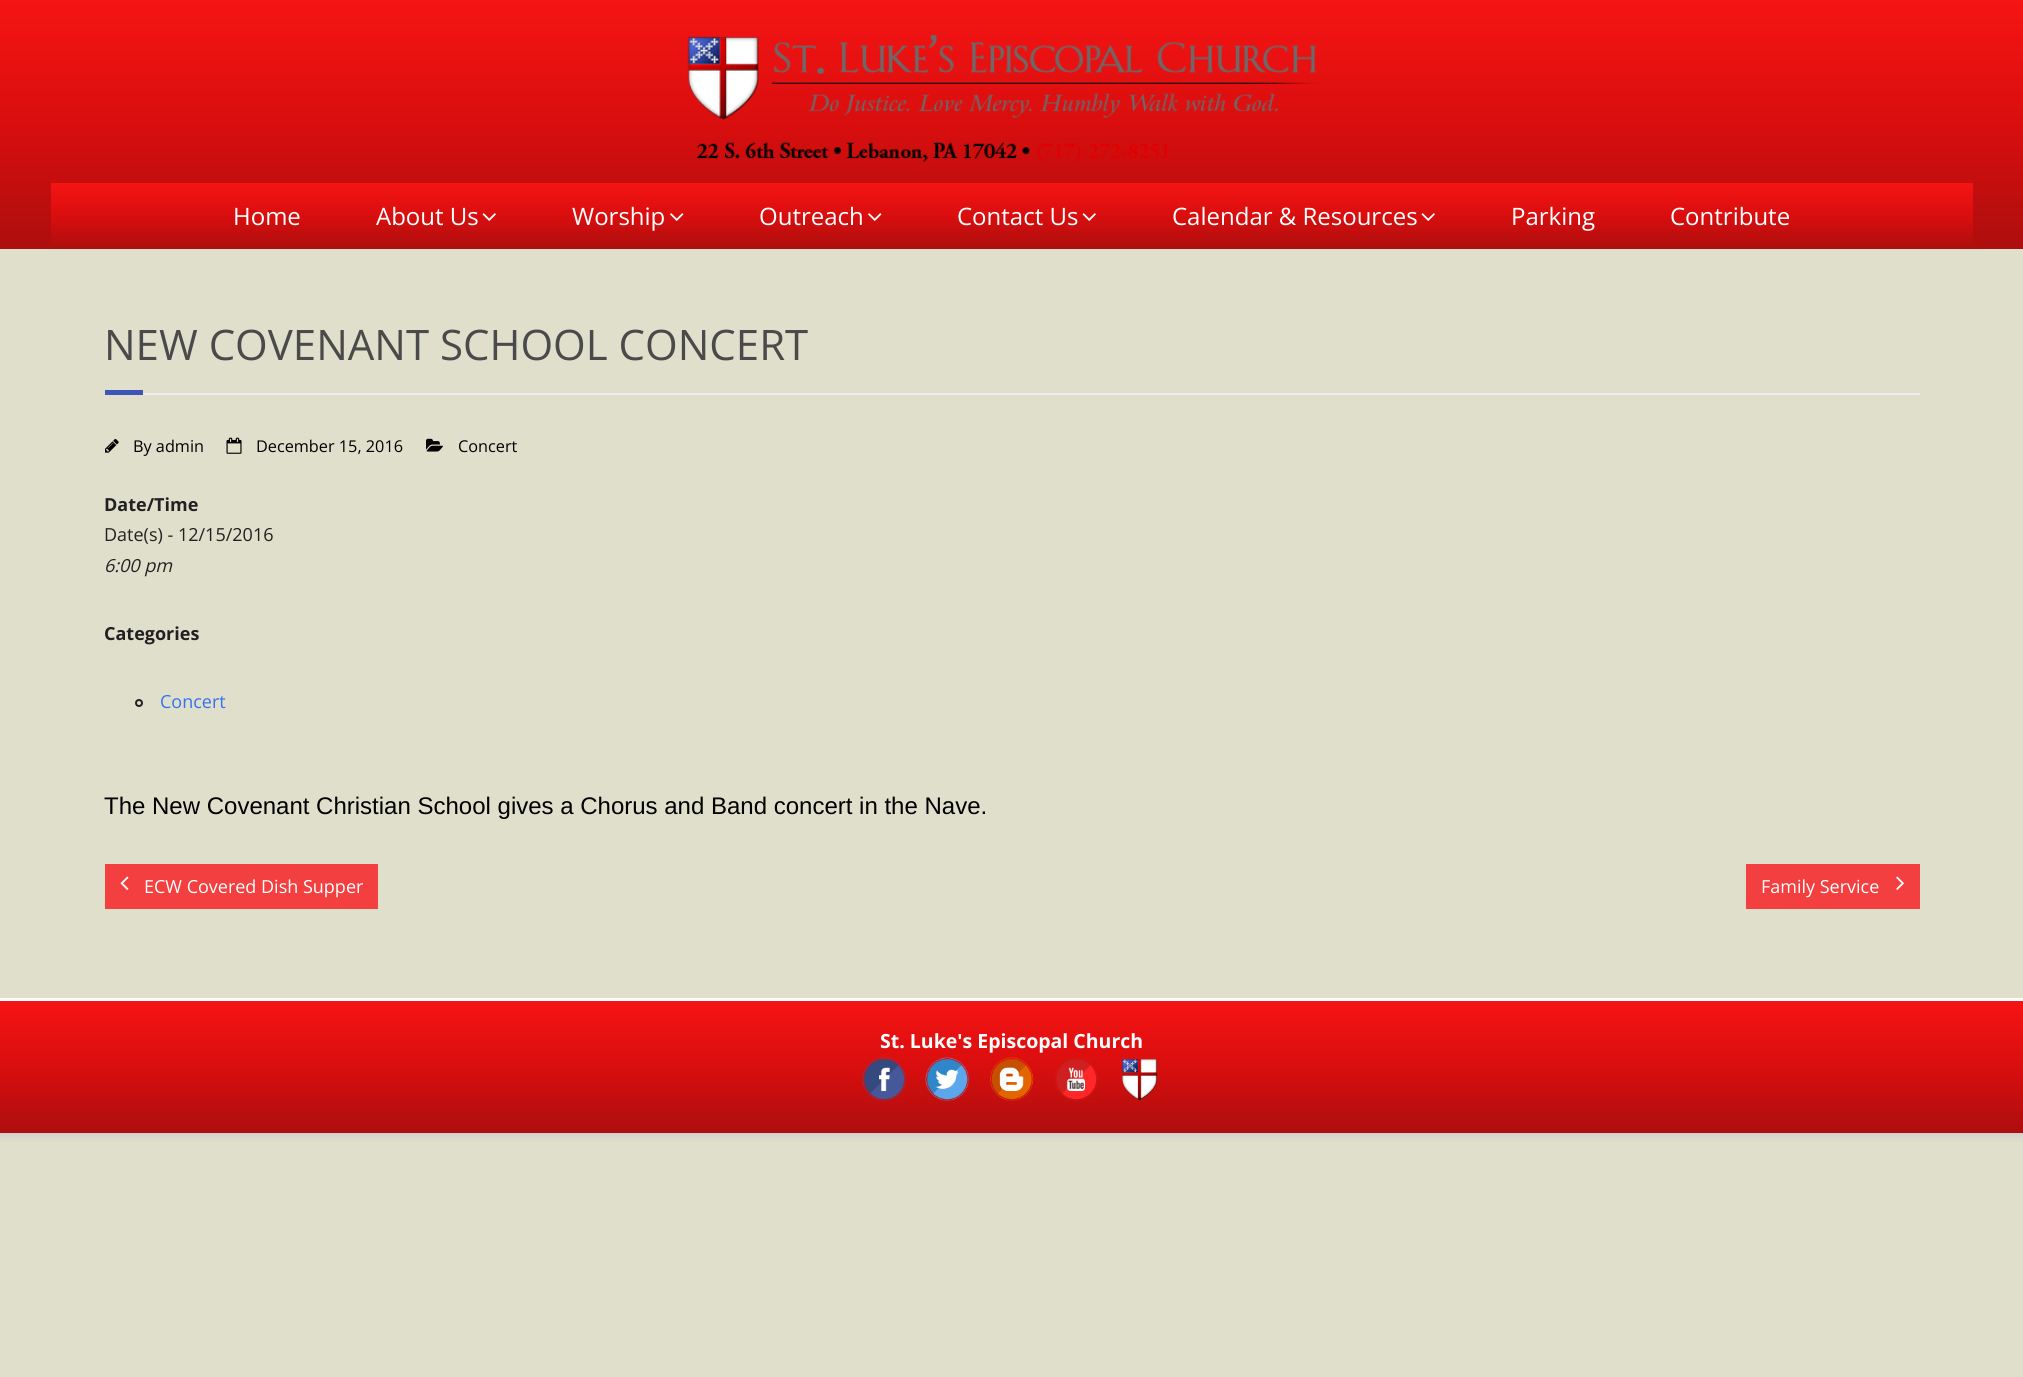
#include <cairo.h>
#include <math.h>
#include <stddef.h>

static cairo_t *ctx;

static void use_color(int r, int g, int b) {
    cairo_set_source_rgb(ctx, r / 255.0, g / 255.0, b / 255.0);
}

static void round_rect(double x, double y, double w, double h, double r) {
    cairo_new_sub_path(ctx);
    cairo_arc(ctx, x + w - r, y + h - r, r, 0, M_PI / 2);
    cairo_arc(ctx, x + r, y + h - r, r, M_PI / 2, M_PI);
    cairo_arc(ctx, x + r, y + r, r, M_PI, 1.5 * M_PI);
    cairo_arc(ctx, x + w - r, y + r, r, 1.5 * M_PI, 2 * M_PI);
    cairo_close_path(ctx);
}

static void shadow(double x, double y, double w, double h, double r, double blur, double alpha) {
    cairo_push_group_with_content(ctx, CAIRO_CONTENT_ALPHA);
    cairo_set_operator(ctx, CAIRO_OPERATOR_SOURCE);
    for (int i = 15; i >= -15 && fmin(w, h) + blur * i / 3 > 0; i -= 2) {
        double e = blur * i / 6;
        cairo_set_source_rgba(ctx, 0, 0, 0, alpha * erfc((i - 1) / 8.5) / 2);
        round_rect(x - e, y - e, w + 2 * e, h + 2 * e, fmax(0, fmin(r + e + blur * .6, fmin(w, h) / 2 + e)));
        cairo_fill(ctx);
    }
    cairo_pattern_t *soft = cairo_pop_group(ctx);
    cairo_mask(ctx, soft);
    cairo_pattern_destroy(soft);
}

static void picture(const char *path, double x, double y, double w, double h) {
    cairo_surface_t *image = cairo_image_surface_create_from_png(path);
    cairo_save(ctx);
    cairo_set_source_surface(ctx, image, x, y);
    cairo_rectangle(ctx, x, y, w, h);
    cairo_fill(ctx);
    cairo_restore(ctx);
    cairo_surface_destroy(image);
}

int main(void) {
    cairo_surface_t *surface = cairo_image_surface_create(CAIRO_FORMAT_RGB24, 2023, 1377);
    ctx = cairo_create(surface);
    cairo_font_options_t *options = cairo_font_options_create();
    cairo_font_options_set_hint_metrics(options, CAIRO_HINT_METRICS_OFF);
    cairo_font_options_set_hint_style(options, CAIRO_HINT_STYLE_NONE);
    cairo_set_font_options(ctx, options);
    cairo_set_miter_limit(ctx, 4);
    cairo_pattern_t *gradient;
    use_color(224, 223, 204);
    cairo_paint(ctx);
    use_color(204, 204, 204);
    shadow(-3, -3, 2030, 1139, 0, 4, 1);
    use_color(224, 223, 204);
    cairo_rectangle(ctx, 0, 249, 2023, 749);
    cairo_fill(ctx);
    gradient = cairo_pattern_create_linear(1012, 0, 1012, 249);
    cairo_pattern_add_color_stop_rgba(gradient, 0, 0.965, 0.078, 0.078, 1);
    cairo_pattern_add_color_stop_rgba(gradient, 0.5, 0.851, 0.055, 0.055, 1);
    cairo_pattern_add_color_stop_rgba(gradient, 1, 0.678, 0.055, 0.055, 1);
    cairo_set_source(ctx, gradient);
    cairo_pattern_destroy(gradient);
    cairo_rectangle(ctx, 0, 0, 2023, 249);
    cairo_fill(ctx);
    picture("img1.png", 687, 34, 633, 128);
    gradient = cairo_pattern_create_linear(1012, 183, 1012, 249);
    cairo_pattern_add_color_stop_rgba(gradient, 0, 0.965, 0.078, 0.078, 1);
    cairo_pattern_add_color_stop_rgba(gradient, 0.5, 0.851, 0.055, 0.055, 1);
    cairo_pattern_add_color_stop_rgba(gradient, 1, 0.678, 0.055, 0.055, 1);
    cairo_set_source(ctx, gradient);
    cairo_pattern_destroy(gradient);
    cairo_rectangle(ctx, 51, 183, 1922, 63);
    cairo_fill(ctx);
    cairo_select_font_face(ctx, "Open Sans", CAIRO_FONT_SLANT_NORMAL, CAIRO_FONT_WEIGHT_NORMAL);
    cairo_set_font_size(ctx, 24);
    use_color(255, 255, 255);
    cairo_move_to(ctx, 233, 225);
    cairo_show_text(ctx, "Home");
    cairo_move_to(ctx, 376, 225);
    cairo_show_text(ctx, "About Us");
    picture("img2.png", 482, 213, 14, 8);
    cairo_move_to(ctx, 572, 225);
    cairo_show_text(ctx, "Worship");
    picture("img3.png", 670, 213, 14, 8);
    cairo_move_to(ctx, 759, 225);
    cairo_show_text(ctx, "Outreach");
    picture("img3.png", 868, 213, 14, 8);
    cairo_move_to(ctx, 957, 225);
    cairo_show_text(ctx, "Contact Us");
    picture("img2.png", 1082, 213, 14, 8);
    cairo_move_to(ctx, 1172, 225);
    cairo_show_text(ctx, "Calendar & Resources");
    picture("img2.png", 1421, 213, 14, 8);
    cairo_move_to(ctx, 1511, 225);
    cairo_show_text(ctx, "Parking");
    cairo_move_to(ctx, 1670, 225);
    cairo_show_text(ctx, "Contribute");
    cairo_set_font_size(ctx, 42);
    use_color(74, 74, 74);
    cairo_move_to(ctx, 104, 360);
    cairo_show_text(ctx, "NEW COVENANT SCHOOL CONCERT");
    use_color(60, 86, 183);
    cairo_rectangle(ctx, 105, 390, 38, 5);
    cairo_fill(ctx);
    use_color(238, 238, 238);
    cairo_rectangle(ctx, 143, 393, 1777, 2);
    cairo_fill(ctx);
    picture("img4.png", 105, 439, 14, 14);
    cairo_set_font_size(ctx, 16.25);
    use_color(0, 0, 0);
    cairo_move_to(ctx, 133, 452);
    cairo_show_text(ctx, "By admin");
    picture("img5.png", 226, 437, 16, 17);
    cairo_move_to(ctx, 256, 452);
    cairo_show_text(ctx, "December 15, 2016");
    picture("img6.png", 426, 438, 17, 14);
    cairo_move_to(ctx, 458, 452);
    cairo_show_text(ctx, "Concert");
    cairo_select_font_face(ctx, "Open Sans", CAIRO_FONT_SLANT_NORMAL, CAIRO_FONT_WEIGHT_BOLD);
    cairo_set_font_size(ctx, 18);
    use_color(33, 33, 33);
    cairo_move_to(ctx, 104, 511);
    cairo_show_text(ctx, "Date/Time");
    cairo_select_font_face(ctx, "Open Sans", CAIRO_FONT_SLANT_NORMAL, CAIRO_FONT_WEIGHT_NORMAL);
    cairo_move_to(ctx, 104, 541);
    cairo_show_text(ctx, "Date(s) - 12/15/2016");
    cairo_select_font_face(ctx, "Open Sans", CAIRO_FONT_SLANT_ITALIC, CAIRO_FONT_WEIGHT_NORMAL);
    cairo_move_to(ctx, 104, 572);
    cairo_show_text(ctx, "6:00 pm");
    cairo_select_font_face(ctx, "Open Sans", CAIRO_FONT_SLANT_NORMAL, CAIRO_FONT_WEIGHT_BOLD);
    cairo_move_to(ctx, 104, 640);
    cairo_show_text(ctx, "Categories");
    cairo_new_path(ctx);
    cairo_arc(ctx, 139, 703, 3, 0, 2 * M_PI);
    cairo_stroke(ctx);
    cairo_select_font_face(ctx, "Open Sans", CAIRO_FONT_SLANT_NORMAL, CAIRO_FONT_WEIGHT_NORMAL);
    use_color(51, 114, 240);
    cairo_move_to(ctx, 160, 708);
    cairo_show_text(ctx, "Concert");
    cairo_select_font_face(ctx, "Liberation Sans", CAIRO_FONT_SLANT_NORMAL, CAIRO_FONT_WEIGHT_NORMAL);
    cairo_set_font_size(ctx, 24);
    use_color(0, 0, 0);
    cairo_move_to(ctx, 104, 814);
    cairo_show_text(ctx, "The New Covenant Christian School gives a Chorus and Band concert in the Nave.");
    use_color(243, 63, 63);
    cairo_rectangle(ctx, 105, 864, 273, 45);
    cairo_fill(ctx);
    picture("img7.png", 120, 876, 9, 14);
    cairo_select_font_face(ctx, "Open Sans", CAIRO_FONT_SLANT_NORMAL, CAIRO_FONT_WEIGHT_NORMAL);
    cairo_set_font_size(ctx, 18);
    use_color(255, 255, 255);
    cairo_move_to(ctx, 144, 893);
    cairo_show_text(ctx, "ECW Covered Dish Supper");
    use_color(243, 63, 63);
    cairo_rectangle(ctx, 1746, 864, 174, 45);
    cairo_fill(ctx);
    use_color(255, 255, 255);
    cairo_move_to(ctx, 1761, 893);
    cairo_show_text(ctx, "Family Service");
    picture("img8.png", 1896, 876, 8, 14);
    gradient = cairo_pattern_create_linear(1012, 1000, 1012, 1133);
    cairo_pattern_add_color_stop_rgba(gradient, 0, 0.965, 0.078, 0.078, 1);
    cairo_pattern_add_color_stop_rgba(gradient, 0.5, 0.851, 0.055, 0.055, 1);
    cairo_pattern_add_color_stop_rgba(gradient, 1, 0.678, 0.055, 0.055, 1);
    cairo_set_source(ctx, gradient);
    cairo_pattern_destroy(gradient);
    cairo_rectangle(ctx, 0, 1001, 2023, 132);
    cairo_fill(ctx);
    use_color(255, 255, 255);
    cairo_rectangle(ctx, 0, 998, 2023, 3);
    cairo_fill(ctx);
    cairo_select_font_face(ctx, "Open Sans", CAIRO_FONT_SLANT_NORMAL, CAIRO_FONT_WEIGHT_BOLD);
    cairo_set_font_size(ctx, 19.5);
    cairo_move_to(ctx, 880, 1048);
    cairo_show_text(ctx, "St. Luke's Episcopal Church");
    picture("img9.png", 862, 1057, 44, 44);
    picture("img10.png", 925, 1057, 44, 44);
    picture("img11.png", 990, 1057, 44, 44);
    picture("img12.png", 1054, 1057, 44, 44);
    picture("img13.png", 1122, 1059, 36, 42);
    cairo_surface_write_to_png(surface, "result.png");
    cairo_font_options_destroy(options);
    cairo_destroy(ctx);
    cairo_surface_destroy(surface);
    return 0;
}
